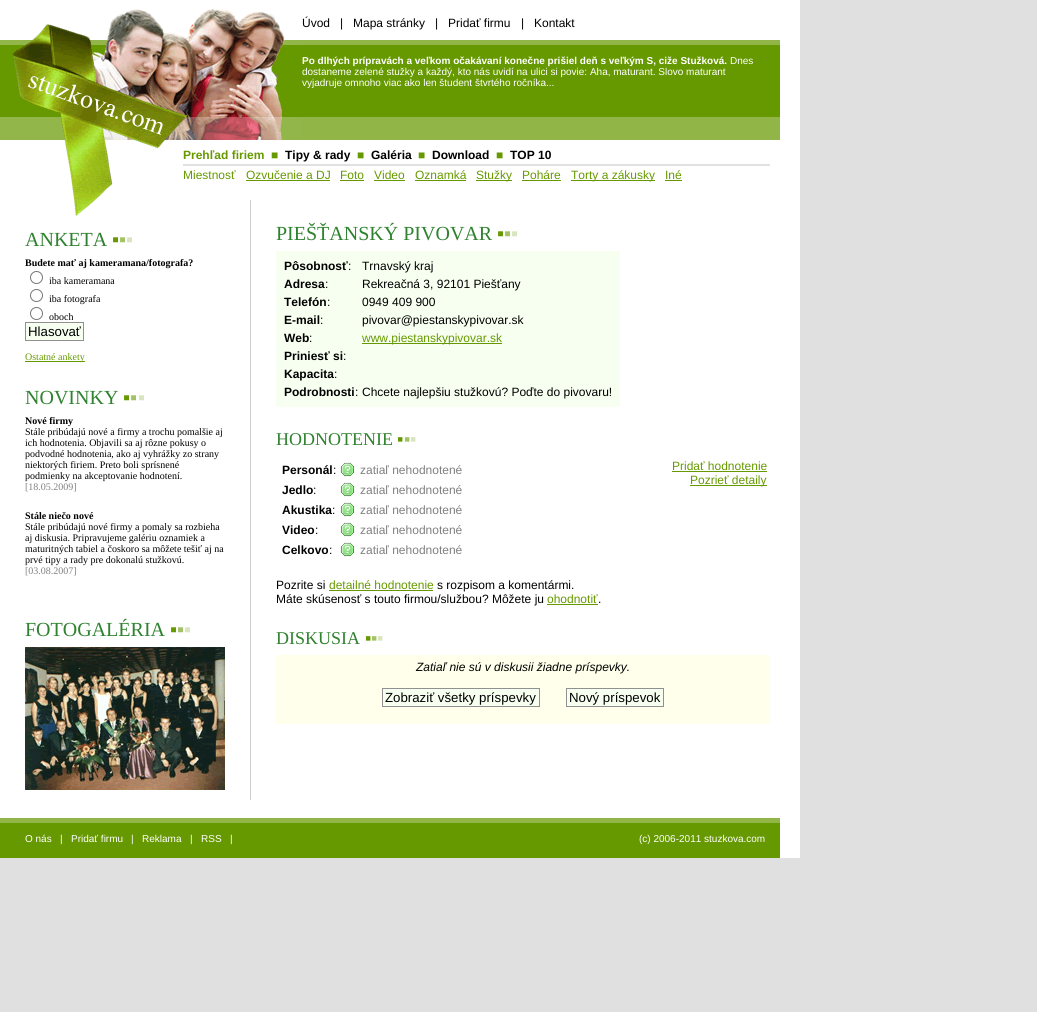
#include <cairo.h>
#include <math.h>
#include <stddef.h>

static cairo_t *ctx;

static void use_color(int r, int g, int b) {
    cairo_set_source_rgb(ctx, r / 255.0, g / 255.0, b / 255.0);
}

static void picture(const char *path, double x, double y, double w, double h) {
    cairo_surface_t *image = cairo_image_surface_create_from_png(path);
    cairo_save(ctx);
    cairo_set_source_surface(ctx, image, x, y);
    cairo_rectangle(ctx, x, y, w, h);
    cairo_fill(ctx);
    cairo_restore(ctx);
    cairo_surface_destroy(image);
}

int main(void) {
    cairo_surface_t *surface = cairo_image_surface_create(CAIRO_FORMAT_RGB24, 1037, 1012);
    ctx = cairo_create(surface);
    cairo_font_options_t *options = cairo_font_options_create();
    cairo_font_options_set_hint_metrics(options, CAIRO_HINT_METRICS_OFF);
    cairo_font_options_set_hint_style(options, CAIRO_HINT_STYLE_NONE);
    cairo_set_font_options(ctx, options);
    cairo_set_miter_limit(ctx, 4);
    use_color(224, 224, 224);
    cairo_paint(ctx);
    use_color(255, 255, 255);
    cairo_rectangle(ctx, 0, 0, 800, 858);
    cairo_fill(ctx);
    picture("img1.png", 32, 9, 253, 31);
    cairo_select_font_face(ctx, "Liberation Sans", CAIRO_FONT_SLANT_NORMAL, CAIRO_FONT_WEIGHT_NORMAL);
    cairo_set_font_size(ctx, 12);
    use_color(0, 0, 0);
    cairo_move_to(ctx, 302, 27);
    cairo_show_text(ctx, "Úvod");
    cairo_move_to(ctx, 340, 27);
    cairo_show_text(ctx, "|");
    cairo_move_to(ctx, 353, 27);
    cairo_show_text(ctx, "Mapa stránky");
    cairo_move_to(ctx, 435, 27);
    cairo_show_text(ctx, "|");
    cairo_move_to(ctx, 448, 27);
    cairo_show_text(ctx, "Pridať firmu");
    cairo_move_to(ctx, 521, 27);
    cairo_show_text(ctx, "|");
    cairo_move_to(ctx, 534, 27);
    cairo_show_text(ctx, "Kontakt");
    picture("img2.png", 0, 40, 302, 100);
    picture("img3.png", 302, 40, 478, 100);
    cairo_select_font_face(ctx, "Liberation Sans", CAIRO_FONT_SLANT_NORMAL, CAIRO_FONT_WEIGHT_BOLD);
    cairo_set_font_size(ctx, 10);
    use_color(255, 255, 255);
    cairo_move_to(ctx, 302, 64);
    cairo_show_text(ctx, "Po dlhých prípravách a veľkom očakávaní konečne prišiel deň s veľkým S, ciže Stužková.");
    cairo_select_font_face(ctx, "Liberation Sans", CAIRO_FONT_SLANT_NORMAL, CAIRO_FONT_WEIGHT_NORMAL);
    cairo_move_to(ctx, 730, 64);
    cairo_show_text(ctx, "Dnes");
    cairo_move_to(ctx, 302, 75);
    cairo_show_text(ctx, "dostaneme zelené stužky a každý, kto nás uvidí na ulici si povie: Aha, maturant. Slovo maturant");
    cairo_move_to(ctx, 302, 86);
    cairo_show_text(ctx, "vyjadruje omnoho viac ako len študent štvrtého ročníka...");
    picture("img4.png", 64, 140, 101, 60);
    use_color(225, 225, 225);
    cairo_rectangle(ctx, 183, 164, 587, 2);
    cairo_fill(ctx);
    cairo_select_font_face(ctx, "Liberation Sans", CAIRO_FONT_SLANT_NORMAL, CAIRO_FONT_WEIGHT_BOLD);
    cairo_set_font_size(ctx, 12);
    use_color(102, 153, 0);
    cairo_move_to(ctx, 183, 159);
    cairo_show_text(ctx, "Prehľad firiem");
    cairo_move_to(ctx, 271, 159);
    cairo_show_text(ctx, "■");
    use_color(0, 0, 0);
    cairo_move_to(ctx, 285, 159);
    cairo_show_text(ctx, "Tipy & rady");
    use_color(102, 153, 0);
    cairo_move_to(ctx, 357, 159);
    cairo_show_text(ctx, "■");
    use_color(0, 0, 0);
    cairo_move_to(ctx, 371, 159);
    cairo_show_text(ctx, "Galéria");
    use_color(102, 153, 0);
    cairo_move_to(ctx, 418, 159);
    cairo_show_text(ctx, "■");
    use_color(0, 0, 0);
    cairo_move_to(ctx, 432, 159);
    cairo_show_text(ctx, "Download");
    use_color(102, 153, 0);
    cairo_move_to(ctx, 496, 159);
    cairo_show_text(ctx, "■");
    use_color(0, 0, 0);
    cairo_move_to(ctx, 510, 159);
    cairo_show_text(ctx, "TOP 10");
    cairo_select_font_face(ctx, "Liberation Sans", CAIRO_FONT_SLANT_NORMAL, CAIRO_FONT_WEIGHT_NORMAL);
    use_color(102, 153, 0);
    cairo_move_to(ctx, 183, 179);
    cairo_show_text(ctx, "Miestnosť");
    cairo_move_to(ctx, 246, 179);
    cairo_show_text(ctx, "Ozvučenie a DJ");
    cairo_rectangle(ctx, 246, 180, 84, 1);
    cairo_fill(ctx);
    cairo_move_to(ctx, 340, 179);
    cairo_show_text(ctx, "Foto");
    cairo_rectangle(ctx, 340, 180, 24, 1);
    cairo_fill(ctx);
    cairo_move_to(ctx, 374, 179);
    cairo_show_text(ctx, "Video");
    cairo_rectangle(ctx, 374, 180, 31, 1);
    cairo_fill(ctx);
    cairo_move_to(ctx, 415, 179);
    cairo_show_text(ctx, "Oznamká");
    cairo_rectangle(ctx, 415, 180, 51, 1);
    cairo_fill(ctx);
    cairo_rectangle(ctx, 476, 180, 36, 1);
    cairo_fill(ctx);
    cairo_move_to(ctx, 476, 179);
    cairo_show_text(ctx, "Stužky");
    cairo_move_to(ctx, 522, 179);
    cairo_show_text(ctx, "Poháre");
    cairo_rectangle(ctx, 522, 180, 39, 1);
    cairo_fill(ctx);
    cairo_rectangle(ctx, 571, 180, 84, 1);
    cairo_fill(ctx);
    cairo_move_to(ctx, 571, 179);
    cairo_show_text(ctx, "Torty a zákusky");
    cairo_move_to(ctx, 665, 179);
    cairo_show_text(ctx, "Iné");
    cairo_rectangle(ctx, 665, 180, 17, 1);
    cairo_fill(ctx);
    use_color(204, 204, 204);
    cairo_rectangle(ctx, 250, 200, 1, 600);
    cairo_fill(ctx);
    picture("img5.png", 74, 200, 21, 17);
    cairo_select_font_face(ctx, "Liberation Serif", CAIRO_FONT_SLANT_NORMAL, CAIRO_FONT_WEIGHT_NORMAL);
    cairo_set_font_size(ctx, 20);
    use_color(47, 130, 47);
    cairo_move_to(ctx, 25, 246);
    cairo_show_text(ctx, "ANKETA");
    use_color(102, 153, 0);
    cairo_move_to(ctx, 112, 246);
    cairo_show_text(ctx, "▪");
    use_color(163, 194, 102);
    cairo_move_to(ctx, 119, 246);
    cairo_show_text(ctx, "▪");
    use_color(217, 229, 191);
    cairo_move_to(ctx, 126, 246);
    cairo_show_text(ctx, "▪");
    cairo_select_font_face(ctx, "Liberation Serif", CAIRO_FONT_SLANT_NORMAL, CAIRO_FONT_WEIGHT_BOLD);
    cairo_set_font_size(ctx, 10);
    use_color(0, 0, 0);
    cairo_move_to(ctx, 25, 266);
    cairo_show_text(ctx, "Budete mať aj kameramana/fotografa?");
    cairo_new_path(ctx);
    cairo_arc(ctx, 36.5, 277.5, 6, 0, 2 * M_PI);
    use_color(118, 118, 118);
    cairo_set_line_width(ctx, 1);
    cairo_stroke(ctx);
    cairo_select_font_face(ctx, "Liberation Serif", CAIRO_FONT_SLANT_NORMAL, CAIRO_FONT_WEIGHT_NORMAL);
    use_color(0, 0, 0);
    cairo_move_to(ctx, 49, 284);
    cairo_show_text(ctx, "iba kameramana");
    cairo_new_path(ctx);
    cairo_arc(ctx, 36.5, 295.5, 6, 0, 2 * M_PI);
    use_color(118, 118, 118);
    cairo_stroke(ctx);
    use_color(0, 0, 0);
    cairo_move_to(ctx, 49, 302);
    cairo_show_text(ctx, "iba fotografa");
    cairo_new_path(ctx);
    cairo_arc(ctx, 36.5, 313.5, 6, 0, 2 * M_PI);
    use_color(118, 118, 118);
    cairo_stroke(ctx);
    use_color(0, 0, 0);
    cairo_move_to(ctx, 49, 320);
    cairo_show_text(ctx, "oboch");
    use_color(247, 255, 240);
    cairo_rectangle(ctx, 25.5, 322.5, 58, 18);
    cairo_fill_preserve(ctx);
    use_color(144, 144, 144);
    cairo_stroke(ctx);
    cairo_select_font_face(ctx, "Liberation Sans", CAIRO_FONT_SLANT_NORMAL, CAIRO_FONT_WEIGHT_NORMAL);
    cairo_set_font_size(ctx, 13.25);
    use_color(0, 0, 0);
    cairo_move_to(ctx, 28, 336);
    cairo_show_text(ctx, "Hlasovať");
    use_color(102, 153, 0);
    cairo_rectangle(ctx, 25, 361, 60, 1);
    cairo_fill(ctx);
    cairo_select_font_face(ctx, "Liberation Serif", CAIRO_FONT_SLANT_NORMAL, CAIRO_FONT_WEIGHT_NORMAL);
    cairo_set_font_size(ctx, 10);
    cairo_move_to(ctx, 25, 360);
    cairo_show_text(ctx, "Ostatné ankety");
    cairo_set_font_size(ctx, 20);
    use_color(47, 130, 47);
    cairo_move_to(ctx, 25, 404);
    cairo_show_text(ctx, "NOVINKY");
    use_color(102, 153, 0);
    cairo_move_to(ctx, 123, 404);
    cairo_show_text(ctx, "▪");
    use_color(163, 194, 102);
    cairo_move_to(ctx, 130, 404);
    cairo_show_text(ctx, "▪");
    use_color(217, 229, 191);
    cairo_move_to(ctx, 138, 404);
    cairo_show_text(ctx, "▪");
    cairo_select_font_face(ctx, "Liberation Serif", CAIRO_FONT_SLANT_NORMAL, CAIRO_FONT_WEIGHT_BOLD);
    cairo_set_font_size(ctx, 10);
    use_color(0, 0, 0);
    cairo_move_to(ctx, 25, 424);
    cairo_show_text(ctx, "Nové firmy");
    cairo_select_font_face(ctx, "Liberation Serif", CAIRO_FONT_SLANT_NORMAL, CAIRO_FONT_WEIGHT_NORMAL);
    cairo_move_to(ctx, 25, 435);
    cairo_show_text(ctx, "Stále pribúdajú nové a firmy a trochu pomalšie aj");
    cairo_move_to(ctx, 25, 446);
    cairo_show_text(ctx, "ich hodnotenia. Objavili sa aj rôzne pokusy o");
    cairo_move_to(ctx, 25, 457);
    cairo_show_text(ctx, "podvodné hodnotenia, ako aj vyhrážky zo strany");
    cairo_move_to(ctx, 25, 468);
    cairo_show_text(ctx, "niektorých firiem. Preto boli sprísnené");
    cairo_move_to(ctx, 25, 479);
    cairo_show_text(ctx, "podmienky na akceptovanie hodnotení.");
    use_color(128, 128, 128);
    cairo_move_to(ctx, 25, 490);
    cairo_show_text(ctx, "[18.05.2009]");
    cairo_select_font_face(ctx, "Liberation Serif", CAIRO_FONT_SLANT_NORMAL, CAIRO_FONT_WEIGHT_BOLD);
    use_color(0, 0, 0);
    cairo_move_to(ctx, 25, 519);
    cairo_show_text(ctx, "Stále niečo nové");
    cairo_select_font_face(ctx, "Liberation Serif", CAIRO_FONT_SLANT_NORMAL, CAIRO_FONT_WEIGHT_NORMAL);
    cairo_move_to(ctx, 25, 530);
    cairo_show_text(ctx, "Stále pribúdajú nové firmy a pomaly sa rozbieha");
    cairo_move_to(ctx, 25, 541);
    cairo_show_text(ctx, "aj diskusia. Pripravujeme galériu oznamiek a");
    cairo_move_to(ctx, 25, 552);
    cairo_show_text(ctx, "maturitných tabiel a čoskoro sa môžete tešiť aj na");
    cairo_move_to(ctx, 25, 563);
    cairo_show_text(ctx, "prvé tipy a rady pre dokonalú stužkovú.");
    use_color(128, 128, 128);
    cairo_move_to(ctx, 25, 574);
    cairo_show_text(ctx, "[03.08.2007]");
    cairo_set_font_size(ctx, 20);
    use_color(47, 130, 47);
    cairo_move_to(ctx, 25, 636);
    cairo_show_text(ctx, "FOTOGALÉRIA");
    use_color(102, 153, 0);
    cairo_move_to(ctx, 170, 636);
    cairo_show_text(ctx, "▪");
    use_color(163, 194, 102);
    cairo_move_to(ctx, 177, 636);
    cairo_show_text(ctx, "▪");
    use_color(217, 229, 191);
    cairo_move_to(ctx, 184, 636);
    cairo_show_text(ctx, "▪");
    picture("img6.png", 25, 647, 200, 143);
    use_color(47, 130, 47);
    cairo_move_to(ctx, 276, 240);
    cairo_show_text(ctx, "PIEŠŤANSKÝ PIVOVAR");
    use_color(102, 153, 0);
    cairo_move_to(ctx, 497, 240);
    cairo_show_text(ctx, "▪");
    use_color(163, 194, 102);
    cairo_move_to(ctx, 504, 240);
    cairo_show_text(ctx, "▪");
    use_color(217, 229, 191);
    cairo_move_to(ctx, 511, 240);
    cairo_show_text(ctx, "▪");
    use_color(247, 255, 240);
    cairo_rectangle(ctx, 276, 251, 344, 156);
    cairo_fill(ctx);
    cairo_select_font_face(ctx, "Liberation Sans", CAIRO_FONT_SLANT_NORMAL, CAIRO_FONT_WEIGHT_BOLD);
    cairo_set_font_size(ctx, 12);
    use_color(0, 0, 0);
    cairo_move_to(ctx, 284, 270);
    cairo_show_text(ctx, "Pôsobnosť");
    cairo_select_font_face(ctx, "Liberation Sans", CAIRO_FONT_SLANT_NORMAL, CAIRO_FONT_WEIGHT_NORMAL);
    cairo_move_to(ctx, 348, 270);
    cairo_show_text(ctx, ":");
    cairo_move_to(ctx, 362, 270);
    cairo_show_text(ctx, "Trnavský kraj");
    cairo_select_font_face(ctx, "Liberation Sans", CAIRO_FONT_SLANT_NORMAL, CAIRO_FONT_WEIGHT_BOLD);
    cairo_move_to(ctx, 284, 288);
    cairo_show_text(ctx, "Adresa");
    cairo_select_font_face(ctx, "Liberation Sans", CAIRO_FONT_SLANT_NORMAL, CAIRO_FONT_WEIGHT_NORMAL);
    cairo_move_to(ctx, 325, 288);
    cairo_show_text(ctx, ":");
    cairo_move_to(ctx, 362, 288);
    cairo_show_text(ctx, "Rekreačná 3, 92101 Piešťany");
    cairo_select_font_face(ctx, "Liberation Sans", CAIRO_FONT_SLANT_NORMAL, CAIRO_FONT_WEIGHT_BOLD);
    cairo_move_to(ctx, 284, 306);
    cairo_show_text(ctx, "Telefón");
    cairo_select_font_face(ctx, "Liberation Sans", CAIRO_FONT_SLANT_NORMAL, CAIRO_FONT_WEIGHT_NORMAL);
    cairo_move_to(ctx, 327, 306);
    cairo_show_text(ctx, ":");
    cairo_move_to(ctx, 362, 306);
    cairo_show_text(ctx, "0949 409 900");
    cairo_select_font_face(ctx, "Liberation Sans", CAIRO_FONT_SLANT_NORMAL, CAIRO_FONT_WEIGHT_BOLD);
    cairo_move_to(ctx, 284, 324);
    cairo_show_text(ctx, "E-mail");
    cairo_select_font_face(ctx, "Liberation Sans", CAIRO_FONT_SLANT_NORMAL, CAIRO_FONT_WEIGHT_NORMAL);
    cairo_move_to(ctx, 320, 324);
    cairo_show_text(ctx, ":");
    cairo_move_to(ctx, 362, 324);
    cairo_show_text(ctx, "pivovar@piestanskypivovar.sk");
    cairo_select_font_face(ctx, "Liberation Sans", CAIRO_FONT_SLANT_NORMAL, CAIRO_FONT_WEIGHT_BOLD);
    cairo_move_to(ctx, 284, 342);
    cairo_show_text(ctx, "Web");
    cairo_select_font_face(ctx, "Liberation Sans", CAIRO_FONT_SLANT_NORMAL, CAIRO_FONT_WEIGHT_NORMAL);
    cairo_move_to(ctx, 309, 342);
    cairo_show_text(ctx, ":");
    use_color(102, 153, 0);
    cairo_rectangle(ctx, 362, 343, 140, 1);
    cairo_fill(ctx);
    cairo_move_to(ctx, 362, 342);
    cairo_show_text(ctx, "www.piestanskypivovar.sk");
    cairo_select_font_face(ctx, "Liberation Sans", CAIRO_FONT_SLANT_NORMAL, CAIRO_FONT_WEIGHT_BOLD);
    use_color(0, 0, 0);
    cairo_move_to(ctx, 284, 360);
    cairo_show_text(ctx, "Priniesť si");
    cairo_select_font_face(ctx, "Liberation Sans", CAIRO_FONT_SLANT_NORMAL, CAIRO_FONT_WEIGHT_NORMAL);
    cairo_move_to(ctx, 343, 360);
    cairo_show_text(ctx, ":");
    cairo_select_font_face(ctx, "Liberation Sans", CAIRO_FONT_SLANT_NORMAL, CAIRO_FONT_WEIGHT_BOLD);
    cairo_move_to(ctx, 284, 378);
    cairo_show_text(ctx, "Kapacita");
    cairo_select_font_face(ctx, "Liberation Sans", CAIRO_FONT_SLANT_NORMAL, CAIRO_FONT_WEIGHT_NORMAL);
    cairo_move_to(ctx, 334, 378);
    cairo_show_text(ctx, ":");
    cairo_select_font_face(ctx, "Liberation Sans", CAIRO_FONT_SLANT_NORMAL, CAIRO_FONT_WEIGHT_BOLD);
    cairo_move_to(ctx, 284, 396);
    cairo_show_text(ctx, "Podrobnosti");
    cairo_select_font_face(ctx, "Liberation Sans", CAIRO_FONT_SLANT_NORMAL, CAIRO_FONT_WEIGHT_NORMAL);
    cairo_move_to(ctx, 355, 396);
    cairo_show_text(ctx, ":");
    cairo_move_to(ctx, 362, 396);
    cairo_show_text(ctx, "Chcete najlepšiu stužkovú? Poďte do pivovaru!");
    cairo_select_font_face(ctx, "Liberation Serif", CAIRO_FONT_SLANT_NORMAL, CAIRO_FONT_WEIGHT_NORMAL);
    cairo_set_font_size(ctx, 18);
    use_color(47, 130, 47);
    cairo_move_to(ctx, 276, 445);
    cairo_show_text(ctx, "HODNOTENIE");
    use_color(102, 153, 0);
    cairo_move_to(ctx, 397, 445);
    cairo_show_text(ctx, "▪");
    use_color(163, 194, 102);
    cairo_move_to(ctx, 404, 445);
    cairo_show_text(ctx, "▪");
    use_color(217, 229, 191);
    cairo_move_to(ctx, 410, 445);
    cairo_show_text(ctx, "▪");
    cairo_select_font_face(ctx, "Liberation Sans", CAIRO_FONT_SLANT_NORMAL, CAIRO_FONT_WEIGHT_BOLD);
    cairo_set_font_size(ctx, 12);
    use_color(0, 0, 0);
    cairo_move_to(ctx, 282, 474);
    cairo_show_text(ctx, "Personál");
    cairo_select_font_face(ctx, "Liberation Sans", CAIRO_FONT_SLANT_NORMAL, CAIRO_FONT_WEIGHT_NORMAL);
    cairo_move_to(ctx, 333, 474);
    cairo_show_text(ctx, ":");
    picture("img7.png", 340, 462, 15, 15);
    use_color(128, 128, 128);
    cairo_move_to(ctx, 360, 474);
    cairo_show_text(ctx, "zatiaľ nehodnotené");
    cairo_select_font_face(ctx, "Liberation Sans", CAIRO_FONT_SLANT_NORMAL, CAIRO_FONT_WEIGHT_BOLD);
    use_color(0, 0, 0);
    cairo_move_to(ctx, 282, 494);
    cairo_show_text(ctx, "Jedlo");
    cairo_select_font_face(ctx, "Liberation Sans", CAIRO_FONT_SLANT_NORMAL, CAIRO_FONT_WEIGHT_NORMAL);
    cairo_move_to(ctx, 313, 494);
    cairo_show_text(ctx, ":");
    picture("img7.png", 340, 482, 15, 15);
    use_color(128, 128, 128);
    cairo_move_to(ctx, 360, 494);
    cairo_show_text(ctx, "zatiaľ nehodnotené");
    cairo_select_font_face(ctx, "Liberation Sans", CAIRO_FONT_SLANT_NORMAL, CAIRO_FONT_WEIGHT_BOLD);
    use_color(0, 0, 0);
    cairo_move_to(ctx, 282, 514);
    cairo_show_text(ctx, "Akustika");
    cairo_select_font_face(ctx, "Liberation Sans", CAIRO_FONT_SLANT_NORMAL, CAIRO_FONT_WEIGHT_NORMAL);
    cairo_move_to(ctx, 332, 514);
    cairo_show_text(ctx, ":");
    picture("img7.png", 340, 502, 15, 15);
    use_color(128, 128, 128);
    cairo_move_to(ctx, 360, 514);
    cairo_show_text(ctx, "zatiaľ nehodnotené");
    cairo_select_font_face(ctx, "Liberation Sans", CAIRO_FONT_SLANT_NORMAL, CAIRO_FONT_WEIGHT_BOLD);
    use_color(0, 0, 0);
    cairo_move_to(ctx, 282, 534);
    cairo_show_text(ctx, "Video");
    cairo_select_font_face(ctx, "Liberation Sans", CAIRO_FONT_SLANT_NORMAL, CAIRO_FONT_WEIGHT_NORMAL);
    cairo_move_to(ctx, 315, 534);
    cairo_show_text(ctx, ":");
    picture("img7.png", 340, 522, 15, 15);
    use_color(128, 128, 128);
    cairo_move_to(ctx, 360, 534);
    cairo_show_text(ctx, "zatiaľ nehodnotené");
    cairo_select_font_face(ctx, "Liberation Sans", CAIRO_FONT_SLANT_NORMAL, CAIRO_FONT_WEIGHT_BOLD);
    use_color(0, 0, 0);
    cairo_move_to(ctx, 282, 554);
    cairo_show_text(ctx, "Celkovo");
    cairo_select_font_face(ctx, "Liberation Sans", CAIRO_FONT_SLANT_NORMAL, CAIRO_FONT_WEIGHT_NORMAL);
    cairo_move_to(ctx, 329, 554);
    cairo_show_text(ctx, ":");
    picture("img7.png", 340, 542, 15, 15);
    use_color(128, 128, 128);
    cairo_move_to(ctx, 360, 554);
    cairo_show_text(ctx, "zatiaľ nehodnotené");
    use_color(102, 153, 0);
    cairo_move_to(ctx, 672, 470);
    cairo_show_text(ctx, "Pridať hodnotenie");
    cairo_rectangle(ctx, 672, 471, 95, 1);
    cairo_fill(ctx);
    cairo_rectangle(ctx, 690, 485, 77, 1);
    cairo_fill(ctx);
    cairo_move_to(ctx, 690, 484);
    cairo_show_text(ctx, "Pozrieť detaily");
    use_color(0, 0, 0);
    cairo_move_to(ctx, 276, 589);
    cairo_show_text(ctx, "Pozrite si");
    use_color(102, 153, 0);
    cairo_move_to(ctx, 329, 589);
    cairo_show_text(ctx, "detailné hodnotenie");
    cairo_rectangle(ctx, 329, 590, 104, 1);
    cairo_fill(ctx);
    use_color(0, 0, 0);
    cairo_move_to(ctx, 437, 589);
    cairo_show_text(ctx, "s rozpisom a komentármi.");
    cairo_move_to(ctx, 276, 603);
    cairo_show_text(ctx, "Máte skúsenosť s touto firmou/službou? Môžete ju");
    use_color(102, 153, 0);
    cairo_move_to(ctx, 547, 603);
    cairo_show_text(ctx, "ohodnotiť");
    cairo_rectangle(ctx, 547, 604, 51, 1);
    cairo_fill(ctx);
    use_color(0, 0, 0);
    cairo_move_to(ctx, 598, 603);
    cairo_show_text(ctx, ".");
    cairo_select_font_face(ctx, "Liberation Serif", CAIRO_FONT_SLANT_NORMAL, CAIRO_FONT_WEIGHT_NORMAL);
    cairo_set_font_size(ctx, 18);
    use_color(47, 130, 47);
    cairo_move_to(ctx, 276, 644);
    cairo_show_text(ctx, "DISKUSIA");
    use_color(102, 153, 0);
    cairo_move_to(ctx, 365, 644);
    cairo_show_text(ctx, "▪");
    use_color(163, 194, 102);
    cairo_move_to(ctx, 371, 644);
    cairo_show_text(ctx, "▪");
    use_color(217, 229, 191);
    cairo_move_to(ctx, 377, 644);
    cairo_show_text(ctx, "▪");
    use_color(255, 255, 236);
    cairo_rectangle(ctx, 276, 655, 494, 69);
    cairo_fill(ctx);
    cairo_select_font_face(ctx, "Liberation Sans", CAIRO_FONT_SLANT_ITALIC, CAIRO_FONT_WEIGHT_NORMAL);
    cairo_set_font_size(ctx, 12);
    use_color(0, 0, 0);
    cairo_move_to(ctx, 416, 671);
    cairo_show_text(ctx, "Zatiaľ nie sú v diskusii žiadne príspevky.");
    use_color(247, 255, 240);
    cairo_rectangle(ctx, 382.5, 688.5, 157, 18);
    cairo_fill_preserve(ctx);
    use_color(144, 144, 144);
    cairo_stroke(ctx);
    cairo_select_font_face(ctx, "Liberation Sans", CAIRO_FONT_SLANT_NORMAL, CAIRO_FONT_WEIGHT_NORMAL);
    cairo_set_font_size(ctx, 13.25);
    use_color(0, 0, 0);
    cairo_move_to(ctx, 385, 702);
    cairo_show_text(ctx, "Zobraziť všetky príspevky");
    use_color(247, 255, 240);
    cairo_rectangle(ctx, 566.5, 688.5, 97, 18);
    cairo_fill_preserve(ctx);
    use_color(144, 144, 144);
    cairo_stroke(ctx);
    use_color(0, 0, 0);
    cairo_move_to(ctx, 569, 702);
    cairo_show_text(ctx, "Nový príspevok");
    picture("img8.png", 0, 818, 462, 40);
    cairo_set_font_size(ctx, 10);
    use_color(255, 255, 255);
    cairo_move_to(ctx, 25, 842);
    cairo_show_text(ctx, "O nás");
    cairo_move_to(ctx, 60, 842);
    cairo_show_text(ctx, "|");
    cairo_move_to(ctx, 71, 842);
    cairo_show_text(ctx, "Pridať firmu");
    cairo_move_to(ctx, 131, 842);
    cairo_show_text(ctx, "|");
    cairo_move_to(ctx, 142, 842);
    cairo_show_text(ctx, "Reklama");
    cairo_move_to(ctx, 190, 842);
    cairo_show_text(ctx, "|");
    cairo_move_to(ctx, 201, 842);
    cairo_show_text(ctx, "RSS");
    cairo_move_to(ctx, 230, 842);
    cairo_show_text(ctx, "|");
    picture("img9.png", 462, 818, 15, 40);
    picture("img10.png", 477, 818, 303, 40);
    cairo_move_to(ctx, 639, 842);
    cairo_show_text(ctx, "(c) 2006-2011 stuzkova.com");
    cairo_surface_write_to_png(surface, "result.png");
    cairo_font_options_destroy(options);
    cairo_destroy(ctx);
    cairo_surface_destroy(surface);
    return 0;
}
